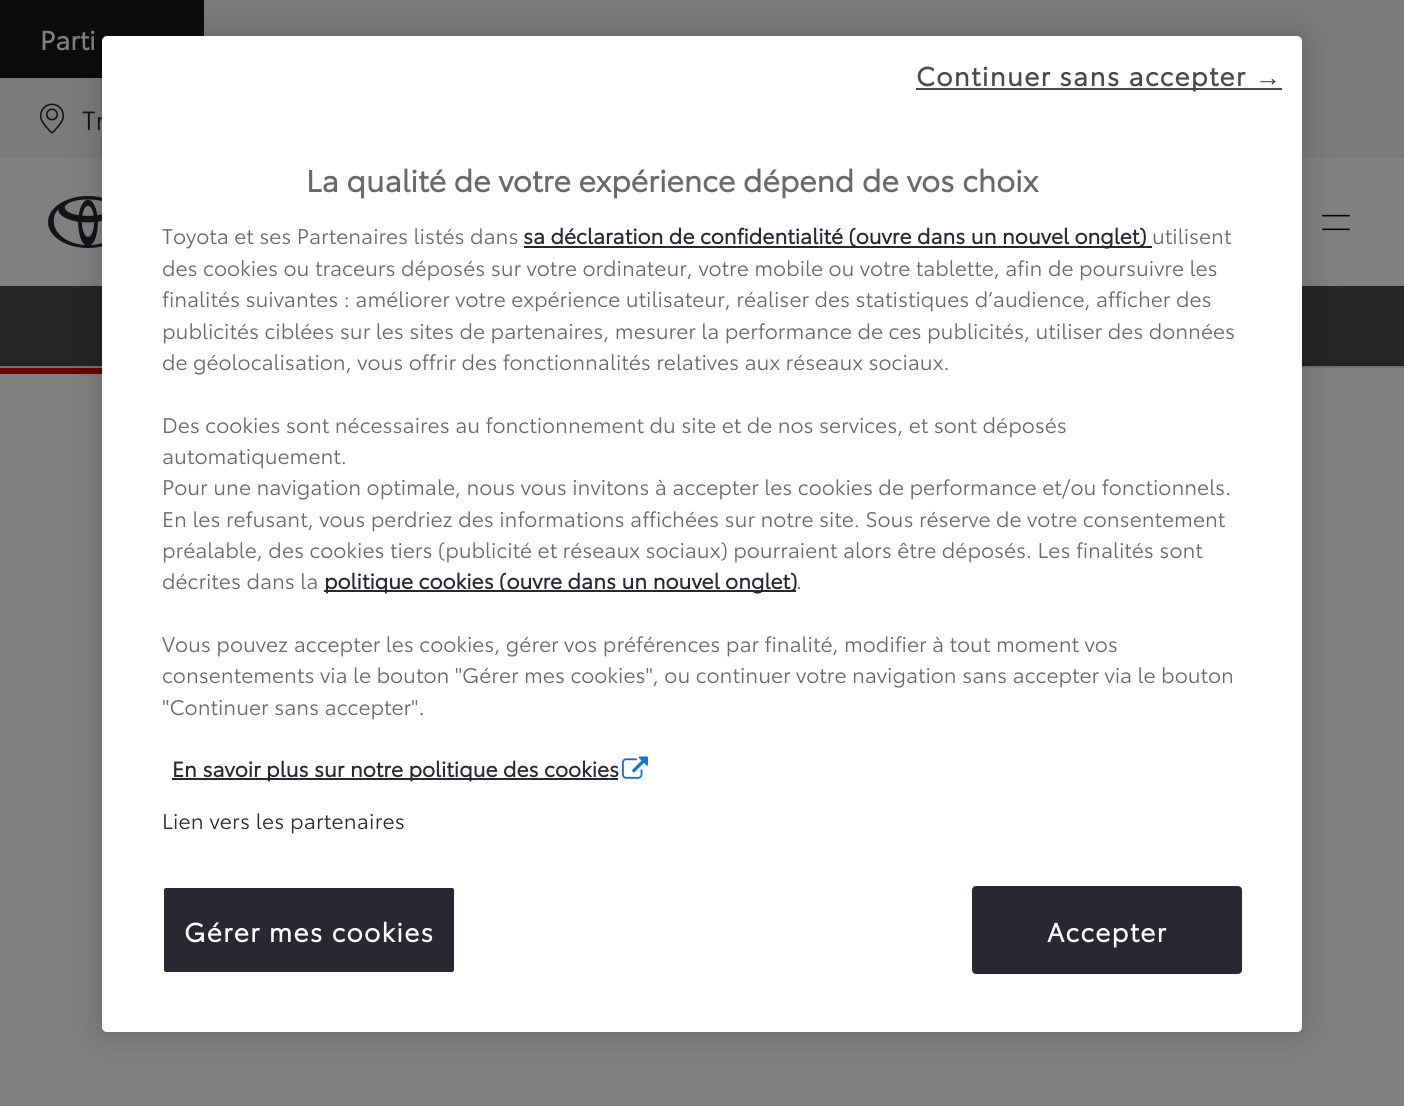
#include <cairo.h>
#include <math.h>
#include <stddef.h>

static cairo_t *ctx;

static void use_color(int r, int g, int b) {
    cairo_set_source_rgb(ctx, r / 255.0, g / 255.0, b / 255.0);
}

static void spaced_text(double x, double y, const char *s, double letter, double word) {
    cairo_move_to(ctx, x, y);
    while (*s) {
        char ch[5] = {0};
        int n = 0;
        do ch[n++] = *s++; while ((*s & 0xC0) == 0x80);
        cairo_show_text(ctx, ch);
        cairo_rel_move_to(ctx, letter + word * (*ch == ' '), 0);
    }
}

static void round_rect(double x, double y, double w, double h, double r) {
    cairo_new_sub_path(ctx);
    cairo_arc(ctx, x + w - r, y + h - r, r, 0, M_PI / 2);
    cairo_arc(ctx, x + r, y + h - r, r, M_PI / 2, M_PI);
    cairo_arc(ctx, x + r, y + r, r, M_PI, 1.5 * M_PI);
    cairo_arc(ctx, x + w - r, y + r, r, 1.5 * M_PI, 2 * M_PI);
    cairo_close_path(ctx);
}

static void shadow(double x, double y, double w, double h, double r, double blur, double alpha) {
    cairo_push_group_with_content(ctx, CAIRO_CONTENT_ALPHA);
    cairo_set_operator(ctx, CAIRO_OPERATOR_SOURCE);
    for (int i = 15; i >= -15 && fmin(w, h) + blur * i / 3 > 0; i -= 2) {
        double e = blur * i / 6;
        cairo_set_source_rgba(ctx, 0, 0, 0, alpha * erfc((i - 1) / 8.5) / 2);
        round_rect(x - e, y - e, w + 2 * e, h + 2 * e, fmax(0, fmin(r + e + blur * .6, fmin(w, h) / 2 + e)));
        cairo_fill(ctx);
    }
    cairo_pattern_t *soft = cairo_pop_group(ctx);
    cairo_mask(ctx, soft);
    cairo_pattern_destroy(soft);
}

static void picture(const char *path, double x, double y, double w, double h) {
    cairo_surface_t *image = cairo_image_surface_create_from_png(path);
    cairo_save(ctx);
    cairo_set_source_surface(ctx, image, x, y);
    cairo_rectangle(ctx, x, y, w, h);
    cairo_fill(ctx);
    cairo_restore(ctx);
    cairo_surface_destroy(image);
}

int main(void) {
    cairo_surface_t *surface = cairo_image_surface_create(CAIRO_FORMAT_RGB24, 1404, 1106);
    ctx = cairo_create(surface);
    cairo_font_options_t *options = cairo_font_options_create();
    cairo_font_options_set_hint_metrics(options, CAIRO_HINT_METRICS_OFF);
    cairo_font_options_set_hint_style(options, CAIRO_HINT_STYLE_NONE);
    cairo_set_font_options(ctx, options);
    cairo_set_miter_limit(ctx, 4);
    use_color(128, 128, 128);
    cairo_paint(ctx);
    use_color(123, 123, 123);
    cairo_rectangle(ctx, 204, 0, 1200, 78);
    cairo_fill(ctx);
    use_color(11, 11, 14);
    cairo_rectangle(ctx, 0, 0, 204, 78);
    cairo_fill(ctx);
    cairo_select_font_face(ctx, "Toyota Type", CAIRO_FONT_SLANT_NORMAL, CAIRO_FONT_WEIGHT_BOLD);
    cairo_set_font_size(ctx, 26);
    use_color(128, 128, 128);
    cairo_move_to(ctx, 40, 50);
    cairo_show_text(ctx, "Parti");
    use_color(123, 123, 123);
    cairo_rectangle(ctx, 0, 78, 1404, 80);
    cairo_fill(ctx);
    picture("img1.png", 40, 103, 24, 31);
    cairo_select_font_face(ctx, "Toyota Type", CAIRO_FONT_SLANT_NORMAL, CAIRO_FONT_WEIGHT_NORMAL);
    use_color(20, 20, 24);
    cairo_move_to(ctx, 82, 130);
    cairo_show_text(ctx, "Tr");
    picture("img2.png", 48, 196, 54, 52);
    picture("img3.png", 1322, 214, 28, 17);
    use_color(37, 37, 37);
    cairo_rectangle(ctx, 0, 286, 1404, 80);
    cairo_fill(ctx);
    use_color(114, 114, 114);
    cairo_rectangle(ctx, 0, 366, 1404, 2);
    cairo_fill(ctx);
    use_color(106, 3, 3);
    cairo_rectangle(ctx, 0, 368, 102, 6);
    cairo_fill(ctx);
    use_color(0, 0, 0);
    shadow(102, 36, 1200, 996, 5, 18, 0.2);
    use_color(255, 255, 255);
    round_rect(102, 36, 1200, 996, 5);
    cairo_fill(ctx);
    use_color(40, 40, 48);
    round_rect(163, 887, 292, 86, 3);
    cairo_fill_preserve(ctx);
    use_color(255, 255, 255);
    cairo_stroke(ctx);
    cairo_select_font_face(ctx, "Toyota Type", CAIRO_FONT_SLANT_NORMAL, CAIRO_FONT_WEIGHT_BOLD);
    spaced_text(184, 942, "Gérer mes cookies", 1.3, 0);
    use_color(73, 73, 73);
    cairo_rectangle(ctx, 916, 88, 366, 2);
    cairo_fill(ctx);
    spaced_text(916, 86, "Continuer sans accepter", 1.3, 0);
    cairo_select_font_face(ctx, "Liberation Sans", CAIRO_FONT_SLANT_NORMAL, CAIRO_FONT_WEIGHT_BOLD);
    spaced_text(1255, 86, "→", 1.3, 0);
    use_color(40, 40, 48);
    round_rect(973, 887, 268, 86, 3);
    cairo_fill_preserve(ctx);
    cairo_stroke(ctx);
    cairo_select_font_face(ctx, "Toyota Type", CAIRO_FONT_SLANT_NORMAL, CAIRO_FONT_WEIGHT_BOLD);
    use_color(255, 255, 255);
    spaced_text(1047, 942, "Accepter", 1.3, 0);
    cairo_set_font_size(ctx, 30);
    use_color(105, 105, 105);
    cairo_move_to(ctx, 306, 192);
    cairo_show_text(ctx, "La qualité de votre expérience dépend de vos choix");
    cairo_select_font_face(ctx, "Toyota Type", CAIRO_FONT_SLANT_NORMAL, CAIRO_FONT_WEIGHT_NORMAL);
    cairo_set_font_size(ctx, 20.9);
    cairo_move_to(ctx, 162, 244);
    cairo_show_text(ctx, "Toyota et ses Partenaires listés dans");
    use_color(40, 40, 48);
    cairo_rectangle(ctx, 524, 246, 628, 2);
    cairo_fill(ctx);
    cairo_select_font_face(ctx, "Toyota Type", CAIRO_FONT_SLANT_NORMAL, CAIRO_FONT_WEIGHT_BOLD);
    cairo_move_to(ctx, 523, 244);
    cairo_show_text(ctx, "sa déclaration de confidentialité (ouvre dans un nouvel onglet)");
    cairo_select_font_face(ctx, "Toyota Type", CAIRO_FONT_SLANT_NORMAL, CAIRO_FONT_WEIGHT_NORMAL);
    use_color(105, 105, 105);
    cairo_move_to(ctx, 1152, 244);
    cairo_show_text(ctx, "utilisent");
    cairo_move_to(ctx, 162, 276);
    cairo_show_text(ctx, "des cookies ou traceurs déposés sur votre ordinateur, votre mobile ou votre tablette, afin de poursuivre les");
    cairo_move_to(ctx, 162, 307);
    cairo_show_text(ctx, "finalités suivantes : améliorer votre expérience utilisateur, réaliser des statistiques d’audience, afficher des");
    cairo_move_to(ctx, 162, 339);
    cairo_show_text(ctx, "publicités ciblées sur les sites de partenaires, mesurer la performance de ces publicités, utiliser des données");
    cairo_move_to(ctx, 162, 370);
    cairo_show_text(ctx, "de géolocalisation, vous offrir des fonctionnalités relatives aux réseaux sociaux.");
    cairo_move_to(ctx, 162, 433);
    cairo_show_text(ctx, "Des cookies sont nécessaires au fonctionnement du site et de nos services, et sont déposés");
    cairo_move_to(ctx, 162, 464);
    cairo_show_text(ctx, "automatiquement.");
    cairo_move_to(ctx, 162, 495);
    cairo_show_text(ctx, "Pour une navigation optimale, nous vous invitons à accepter les cookies de performance et/ou fonctionnels.");
    cairo_move_to(ctx, 162, 527);
    cairo_show_text(ctx, "En les refusant, vous perdriez des informations affichées sur notre site. Sous réserve de votre consentement");
    cairo_move_to(ctx, 162, 558);
    cairo_show_text(ctx, "préalable, des cookies tiers (publicité et réseaux sociaux) pourraient alors être déposés. Les finalités sont");
    cairo_move_to(ctx, 162, 589);
    cairo_show_text(ctx, "décrites dans la");
    use_color(40, 40, 48);
    cairo_rectangle(ctx, 324, 590, 472, 2);
    cairo_fill(ctx);
    cairo_select_font_face(ctx, "Toyota Type", CAIRO_FONT_SLANT_NORMAL, CAIRO_FONT_WEIGHT_BOLD);
    cairo_move_to(ctx, 324, 589);
    cairo_show_text(ctx, "politique cookies (ouvre dans un nouvel onglet)");
    cairo_select_font_face(ctx, "Toyota Type", CAIRO_FONT_SLANT_NORMAL, CAIRO_FONT_WEIGHT_NORMAL);
    use_color(105, 105, 105);
    cairo_move_to(ctx, 796, 589);
    cairo_show_text(ctx, ".");
    cairo_move_to(ctx, 162, 652);
    cairo_show_text(ctx, "Vous pouvez accepter les cookies, gérer vos préférences par finalité, modifier à tout moment vos");
    cairo_move_to(ctx, 162, 683);
    cairo_show_text(ctx, "consentements via le bouton \"Gérer mes cookies\", ou continuer votre navigation sans accepter via le bouton");
    cairo_move_to(ctx, 162, 715);
    cairo_show_text(ctx, "\"Continuer sans accepter\".");
    use_color(40, 40, 48);
    cairo_rectangle(ctx, 172, 778, 446, 2);
    cairo_fill(ctx);
    cairo_select_font_face(ctx, "Toyota Type", CAIRO_FONT_SLANT_NORMAL, CAIRO_FONT_WEIGHT_BOLD);
    cairo_move_to(ctx, 172, 777);
    cairo_show_text(ctx, "En savoir plus sur notre politique des cookies");
    picture("img4.png", 622, 756, 26, 23);
    cairo_select_font_face(ctx, "Toyota Type", CAIRO_FONT_SLANT_NORMAL, CAIRO_FONT_WEIGHT_NORMAL);
    spaced_text(162, 829, "Lien vers les partenaires", 0.2, 0);
    cairo_surface_write_to_png(surface, "result.png");
    cairo_font_options_destroy(options);
    cairo_destroy(ctx);
    cairo_surface_destroy(surface);
    return 0;
}
